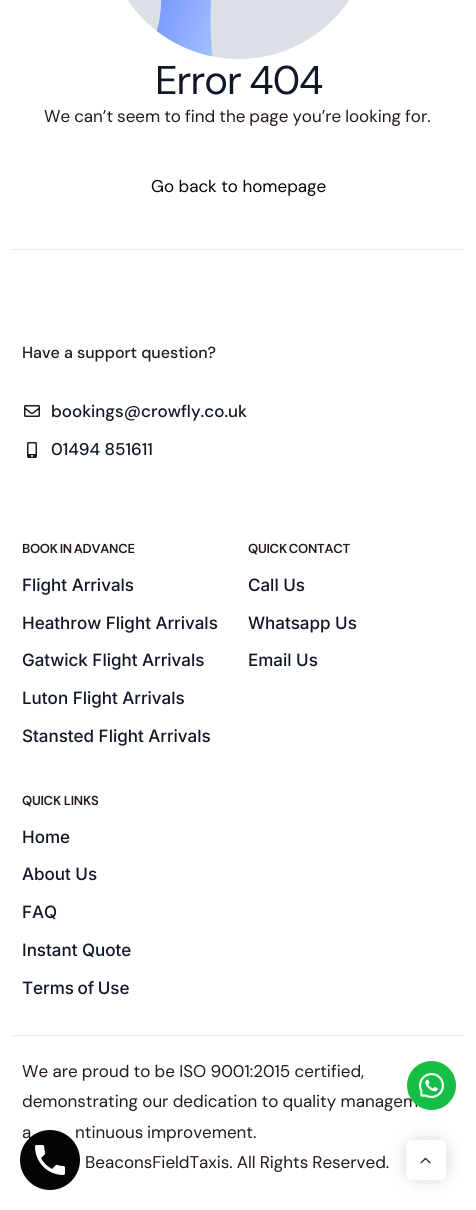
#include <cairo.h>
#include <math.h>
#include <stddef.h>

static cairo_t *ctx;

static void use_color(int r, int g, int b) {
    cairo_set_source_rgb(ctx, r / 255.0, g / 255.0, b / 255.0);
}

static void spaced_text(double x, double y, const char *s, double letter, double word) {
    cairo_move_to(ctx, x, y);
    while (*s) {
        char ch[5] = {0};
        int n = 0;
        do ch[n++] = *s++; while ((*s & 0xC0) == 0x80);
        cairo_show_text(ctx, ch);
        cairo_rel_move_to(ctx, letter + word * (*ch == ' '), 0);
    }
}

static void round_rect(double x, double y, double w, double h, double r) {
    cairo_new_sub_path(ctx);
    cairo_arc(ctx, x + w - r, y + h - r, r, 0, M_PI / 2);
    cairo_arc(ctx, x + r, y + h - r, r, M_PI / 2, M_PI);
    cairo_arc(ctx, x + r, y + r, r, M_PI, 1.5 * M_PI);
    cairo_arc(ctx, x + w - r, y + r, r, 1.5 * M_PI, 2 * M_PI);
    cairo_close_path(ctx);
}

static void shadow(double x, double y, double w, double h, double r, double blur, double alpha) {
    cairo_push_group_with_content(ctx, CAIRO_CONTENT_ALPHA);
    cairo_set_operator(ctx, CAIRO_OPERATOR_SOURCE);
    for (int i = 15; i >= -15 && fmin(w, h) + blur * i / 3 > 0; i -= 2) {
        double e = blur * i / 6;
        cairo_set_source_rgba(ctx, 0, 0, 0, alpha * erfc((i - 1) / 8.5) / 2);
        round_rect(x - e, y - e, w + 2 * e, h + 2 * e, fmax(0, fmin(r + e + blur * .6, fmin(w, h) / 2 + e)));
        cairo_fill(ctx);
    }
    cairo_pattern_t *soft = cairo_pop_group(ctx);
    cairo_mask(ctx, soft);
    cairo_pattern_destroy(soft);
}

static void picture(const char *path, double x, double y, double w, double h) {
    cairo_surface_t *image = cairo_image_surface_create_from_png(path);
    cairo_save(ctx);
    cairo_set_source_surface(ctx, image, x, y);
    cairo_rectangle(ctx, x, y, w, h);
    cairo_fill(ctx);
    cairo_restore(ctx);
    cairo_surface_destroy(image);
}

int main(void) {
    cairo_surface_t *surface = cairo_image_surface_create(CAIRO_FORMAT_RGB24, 476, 1210);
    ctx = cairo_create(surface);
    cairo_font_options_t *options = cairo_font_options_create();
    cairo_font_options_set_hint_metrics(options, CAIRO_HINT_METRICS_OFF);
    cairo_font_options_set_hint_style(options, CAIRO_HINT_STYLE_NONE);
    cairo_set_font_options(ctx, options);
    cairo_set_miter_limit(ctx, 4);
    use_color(255, 255, 255);
    cairo_paint(ctx);
    picture("img1.png", 128, 0, 221, 59);
    cairo_select_font_face(ctx, "DM Sans", CAIRO_FONT_SLANT_NORMAL, CAIRO_FONT_WEIGHT_NORMAL);
    cairo_set_font_size(ctx, 40);
    use_color(16, 24, 40);
    spaced_text(155, 94, "Error 404", -1, -1);
    cairo_set_font_size(ctx, 17);
    use_color(40, 25, 25);
    spaced_text(44, 122, "We can’t seem to find the page you’re looking for.", 0, -0.5);
    use_color(4, 4, 4);
    cairo_move_to(ctx, 151, 192);
    cairo_show_text(ctx, "Go back to homepage");
    use_color(235, 235, 235);
    cairo_rectangle(ctx, 12, 249, 452, 1);
    cairo_fill(ctx);
    cairo_rectangle(ctx, 12, 1035, 452, 1);
    cairo_fill(ctx);
    cairo_select_font_face(ctx, "DM Sans Medium", CAIRO_FONT_SLANT_NORMAL, CAIRO_FONT_WEIGHT_NORMAL);
    cairo_set_font_size(ctx, 16);
    use_color(40, 25, 25);
    cairo_move_to(ctx, 22, 358);
    cairo_show_text(ctx, "Have a support question?");
    picture("img2.png", 24, 405, 16, 12);
    cairo_set_font_size(ctx, 17);
    use_color(16, 24, 40);
    cairo_move_to(ctx, 51, 417);
    cairo_show_text(ctx, "bookings@crowfly.co.uk");
    picture("img3.png", 27, 442, 10, 16);
    cairo_move_to(ctx, 51, 455);
    cairo_show_text(ctx, "01494 851611");
    cairo_select_font_face(ctx, "DM Sans SemiBold", CAIRO_FONT_SLANT_NORMAL, CAIRO_FONT_WEIGHT_NORMAL);
    cairo_set_font_size(ctx, 13);
    use_color(40, 25, 25);
    spaced_text(22, 553, "BOOK IN ADVANCE", -0.25, -1);
    cairo_select_font_face(ctx, "Inter Medium", CAIRO_FONT_SLANT_NORMAL, CAIRO_FONT_WEIGHT_NORMAL);
    cairo_set_font_size(ctx, 17);
    use_color(16, 24, 40);
    cairo_move_to(ctx, 22, 591);
    cairo_show_text(ctx, "Flight Arrivals");
    cairo_move_to(ctx, 22, 629);
    cairo_show_text(ctx, "Heathrow Flight Arrivals");
    cairo_move_to(ctx, 22, 666);
    cairo_show_text(ctx, "Gatwick Flight Arrivals");
    cairo_move_to(ctx, 22, 704);
    cairo_show_text(ctx, "Luton Flight Arrivals");
    cairo_move_to(ctx, 22, 742);
    cairo_show_text(ctx, "Stansted Flight Arrivals");
    cairo_select_font_face(ctx, "DM Sans SemiBold", CAIRO_FONT_SLANT_NORMAL, CAIRO_FONT_WEIGHT_NORMAL);
    cairo_set_font_size(ctx, 13);
    use_color(40, 25, 25);
    spaced_text(248, 553, "QUICK CONTACT", -0.25, -1);
    cairo_select_font_face(ctx, "Inter Medium", CAIRO_FONT_SLANT_NORMAL, CAIRO_FONT_WEIGHT_NORMAL);
    cairo_set_font_size(ctx, 17);
    use_color(16, 24, 40);
    cairo_move_to(ctx, 248, 591);
    cairo_show_text(ctx, "Call Us");
    cairo_move_to(ctx, 248, 629);
    cairo_show_text(ctx, "Whatsapp Us");
    cairo_move_to(ctx, 248, 666);
    cairo_show_text(ctx, "Email Us");
    cairo_select_font_face(ctx, "DM Sans SemiBold", CAIRO_FONT_SLANT_NORMAL, CAIRO_FONT_WEIGHT_NORMAL);
    cairo_set_font_size(ctx, 13);
    use_color(40, 25, 25);
    spaced_text(22, 805, "QUICK LINKS", -0.25, 0);
    cairo_select_font_face(ctx, "Inter Medium", CAIRO_FONT_SLANT_NORMAL, CAIRO_FONT_WEIGHT_NORMAL);
    cairo_set_font_size(ctx, 17);
    use_color(16, 24, 40);
    cairo_move_to(ctx, 22, 843);
    cairo_show_text(ctx, "Home");
    cairo_move_to(ctx, 22, 880);
    cairo_show_text(ctx, "About Us");
    cairo_move_to(ctx, 22, 918);
    cairo_show_text(ctx, "FAQ");
    cairo_move_to(ctx, 22, 956);
    cairo_show_text(ctx, "Instant Quote");
    spaced_text(22, 994, "Terms of Use", 0, -1);
    cairo_select_font_face(ctx, "DM Sans", CAIRO_FONT_SLANT_NORMAL, CAIRO_FONT_WEIGHT_NORMAL);
    use_color(40, 25, 25);
    spaced_text(22, 1077, "We are proud to be ISO 9001:2015 certified,", 0, -0.25);
    spaced_text(22, 1107, "demonstrating our dedication to quality managem", 0, -0.25);
    spaced_text(22, 1138, "a", 0, -1);
    spaced_text(75, 1138, "ntinuous improvement.", 0, -1);
    spaced_text(85, 1168, "BeaconsFieldTaxis. All Rights Reserved.", 0, -0.5);
    cairo_save(ctx);
    cairo_set_fill_rule(ctx, CAIRO_FILL_RULE_EVEN_ODD);
    cairo_new_path(ctx);
    cairo_move_to(ctx, 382, 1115);
    cairo_line_to(ctx, 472, 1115);
    cairo_line_to(ctx, 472, 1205);
    cairo_line_to(ctx, 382, 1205);
    cairo_close_path(ctx);
    cairo_move_to(ctx, 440, 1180);
    cairo_line_to(ctx, 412, 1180);
    cairo_curve_to(ctx, 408.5, 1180, 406, 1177.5, 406, 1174);
    cairo_line_to(ctx, 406, 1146);
    cairo_curve_to(ctx, 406, 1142.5, 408.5, 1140, 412, 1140);
    cairo_line_to(ctx, 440, 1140);
    cairo_curve_to(ctx, 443.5, 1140, 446, 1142.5, 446, 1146);
    cairo_line_to(ctx, 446, 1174);
    cairo_curve_to(ctx, 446, 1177.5, 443.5, 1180, 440, 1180);
    cairo_close_path(ctx);
    cairo_clip(ctx);
    use_color(0, 0, 0);
    shadow(416, 1149, 22, 22, 0, 11, 0.4);
    cairo_restore(ctx);
    picture("img4.png", 420, 1157, 11, 7);
    use_color(22, 190, 69);
    cairo_arc(ctx, 431.5, 1085.5, 24.5, 0, 2 * M_PI);
    cairo_fill(ctx);
    picture("img5.png", 419, 1073, 25, 25);
    use_color(4, 4, 4);
    cairo_arc(ctx, 50, 1160, 30, 0, 2 * M_PI);
    cairo_fill(ctx);
    picture("img6.png", 35, 1145, 30, 30);
    cairo_surface_write_to_png(surface, "result.png");
    cairo_font_options_destroy(options);
    cairo_destroy(ctx);
    cairo_surface_destroy(surface);
    return 0;
}
